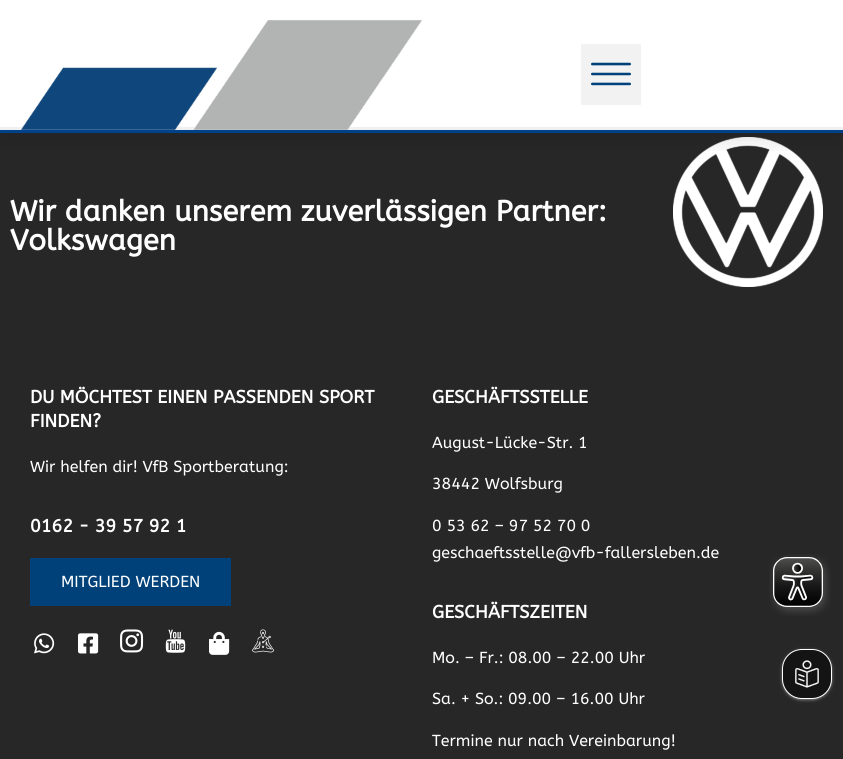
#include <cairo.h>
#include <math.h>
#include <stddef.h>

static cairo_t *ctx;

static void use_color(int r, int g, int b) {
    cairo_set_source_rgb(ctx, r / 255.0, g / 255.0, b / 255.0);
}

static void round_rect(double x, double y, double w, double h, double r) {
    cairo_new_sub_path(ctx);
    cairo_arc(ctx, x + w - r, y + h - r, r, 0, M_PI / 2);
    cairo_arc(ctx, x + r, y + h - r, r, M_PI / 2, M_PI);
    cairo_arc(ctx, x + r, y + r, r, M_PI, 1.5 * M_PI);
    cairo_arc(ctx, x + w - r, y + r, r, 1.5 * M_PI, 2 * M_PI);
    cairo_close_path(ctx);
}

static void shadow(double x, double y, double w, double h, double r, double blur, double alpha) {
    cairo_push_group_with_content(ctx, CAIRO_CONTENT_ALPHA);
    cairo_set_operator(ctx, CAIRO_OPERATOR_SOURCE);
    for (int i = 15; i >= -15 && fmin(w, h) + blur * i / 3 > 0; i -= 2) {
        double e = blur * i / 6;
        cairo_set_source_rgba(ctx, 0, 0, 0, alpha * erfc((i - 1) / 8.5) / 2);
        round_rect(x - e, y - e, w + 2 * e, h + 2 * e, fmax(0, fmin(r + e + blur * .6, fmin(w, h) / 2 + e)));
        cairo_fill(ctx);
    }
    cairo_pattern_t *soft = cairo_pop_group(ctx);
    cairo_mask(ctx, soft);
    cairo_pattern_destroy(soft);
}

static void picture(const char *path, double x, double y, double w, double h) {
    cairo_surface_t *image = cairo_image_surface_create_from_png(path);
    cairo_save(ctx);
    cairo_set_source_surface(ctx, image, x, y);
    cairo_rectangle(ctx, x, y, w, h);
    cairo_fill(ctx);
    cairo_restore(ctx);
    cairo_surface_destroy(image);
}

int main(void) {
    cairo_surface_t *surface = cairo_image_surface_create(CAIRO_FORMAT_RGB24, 843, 759);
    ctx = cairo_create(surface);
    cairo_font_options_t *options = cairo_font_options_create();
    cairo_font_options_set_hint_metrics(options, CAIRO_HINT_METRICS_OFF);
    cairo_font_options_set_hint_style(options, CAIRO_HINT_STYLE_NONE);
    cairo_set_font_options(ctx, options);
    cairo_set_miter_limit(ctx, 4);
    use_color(255, 255, 255);
    cairo_paint(ctx);
    use_color(39, 39, 39);
    cairo_rectangle(ctx, 0, 133, 843, 626);
    cairo_fill(ctx);
    use_color(240, 240, 240);
    cairo_rectangle(ctx, 0, 127, 843, 3);
    cairo_fill(ctx);
    picture("img3.png", 673, 137, 150, 150);
    cairo_save(ctx);
    cairo_rectangle(ctx, 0, 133, 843, 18);
    cairo_clip(ctx);
    use_color(0, 0, 0);
    shadow(0, 30, 843, 113, 0, 10, 0.1);
    cairo_restore(ctx);
    use_color(0, 66, 137);
    cairo_rectangle(ctx, 0, 130, 843, 3);
    cairo_fill(ctx);
    picture("img1.png", 21, 20, 401, 110);
    use_color(242, 242, 242);
    cairo_rectangle(ctx, 581, 44, 60, 61);
    cairo_fill(ctx);
    picture("img2.png", 591, 62, 40, 24);
    cairo_select_font_face(ctx, "ABeeZee", CAIRO_FONT_SLANT_NORMAL, CAIRO_FONT_WEIGHT_BOLD);
    cairo_set_font_size(ctx, 29);
    use_color(255, 255, 255);
    cairo_move_to(ctx, 10, 221);
    cairo_show_text(ctx, "Wir danken unserem zuverlässigen Partner:");
    cairo_move_to(ctx, 10, 250);
    cairo_show_text(ctx, "Volkswagen");
    cairo_set_font_size(ctx, 18);
    cairo_move_to(ctx, 30, 403);
    cairo_show_text(ctx, "DU MÖCHTEST EINEN PASSENDEN SPORT");
    cairo_move_to(ctx, 30, 427);
    cairo_show_text(ctx, "FINDEN?");
    cairo_select_font_face(ctx, "ABeeZee", CAIRO_FONT_SLANT_NORMAL, CAIRO_FONT_WEIGHT_NORMAL);
    cairo_set_font_size(ctx, 16);
    cairo_move_to(ctx, 30, 472);
    cairo_show_text(ctx, "Wir helfen dir! VfB Sportberatung:");
    cairo_select_font_face(ctx, "ABeeZee", CAIRO_FONT_SLANT_NORMAL, CAIRO_FONT_WEIGHT_BOLD);
    cairo_set_font_size(ctx, 18);
    cairo_move_to(ctx, 30, 532);
    cairo_show_text(ctx, "0162 - 39 57 92 1");
    use_color(0, 65, 121);
    cairo_rectangle(ctx, 30, 558, 201, 48);
    cairo_fill(ctx);
    cairo_select_font_face(ctx, "ABeeZee", CAIRO_FONT_SLANT_NORMAL, CAIRO_FONT_WEIGHT_NORMAL);
    cairo_set_font_size(ctx, 16);
    use_color(255, 255, 255);
    cairo_move_to(ctx, 61, 587);
    cairo_show_text(ctx, "MITGLIED WERDEN");
    picture("img4.png", 34, 633, 21, 21);
    picture("img5.png", 78, 633, 21, 21);
    picture("img6.png", 120, 629, 24, 24);
    picture("img7.png", 165, 629, 21, 24);
    picture("img8.png", 209, 631, 21, 24);
    picture("img9.png", 252, 629, 23, 24);
    cairo_select_font_face(ctx, "ABeeZee", CAIRO_FONT_SLANT_NORMAL, CAIRO_FONT_WEIGHT_BOLD);
    cairo_set_font_size(ctx, 18);
    cairo_move_to(ctx, 432, 403);
    cairo_show_text(ctx, "GESCHÄFTSSTELLE");
    cairo_select_font_face(ctx, "ABeeZee", CAIRO_FONT_SLANT_NORMAL, CAIRO_FONT_WEIGHT_NORMAL);
    cairo_set_font_size(ctx, 16);
    cairo_move_to(ctx, 432, 448);
    cairo_show_text(ctx, "August-Lücke-Str. 1");
    cairo_move_to(ctx, 432, 489);
    cairo_show_text(ctx, "38442 Wolfsburg");
    cairo_move_to(ctx, 432, 531);
    cairo_show_text(ctx, "0 53 62 – 97 52 70 0");
    cairo_move_to(ctx, 432, 558);
    cairo_show_text(ctx, "geschaeftsstelle@vfb-fallersleben.de");
    cairo_select_font_face(ctx, "ABeeZee", CAIRO_FONT_SLANT_NORMAL, CAIRO_FONT_WEIGHT_BOLD);
    cairo_set_font_size(ctx, 18);
    cairo_move_to(ctx, 432, 618);
    cairo_show_text(ctx, "GESCHÄFTSZEITEN");
    cairo_select_font_face(ctx, "ABeeZee", CAIRO_FONT_SLANT_NORMAL, CAIRO_FONT_WEIGHT_NORMAL);
    cairo_set_font_size(ctx, 16);
    cairo_move_to(ctx, 432, 663);
    cairo_show_text(ctx, "Mo. – Fr.: 08.00 – 22.00 Uhr");
    cairo_move_to(ctx, 432, 704);
    cairo_show_text(ctx, "Sa. + So.: 09.00 – 16.00 Uhr");
    cairo_move_to(ctx, 432, 746);
    cairo_show_text(ctx, "Termine nur nach Vereinbarung!");
    picture("img10.png", 769, 554, 62, 62);
    use_color(132, 132, 132);
    shadow(782, 650, 50, 50, 20, 1.5, 1);
    use_color(21, 20, 20);
    round_rect(782.5, 649.5, 49, 49, 19.5);
    cairo_fill_preserve(ctx);
    use_color(255, 255, 255);
    cairo_set_line_width(ctx, 1);
    cairo_stroke(ctx);
    picture("img11.png", 795, 660, 24, 28);
    cairo_surface_write_to_png(surface, "result.png");
    cairo_font_options_destroy(options);
    cairo_destroy(ctx);
    cairo_surface_destroy(surface);
    return 0;
}
